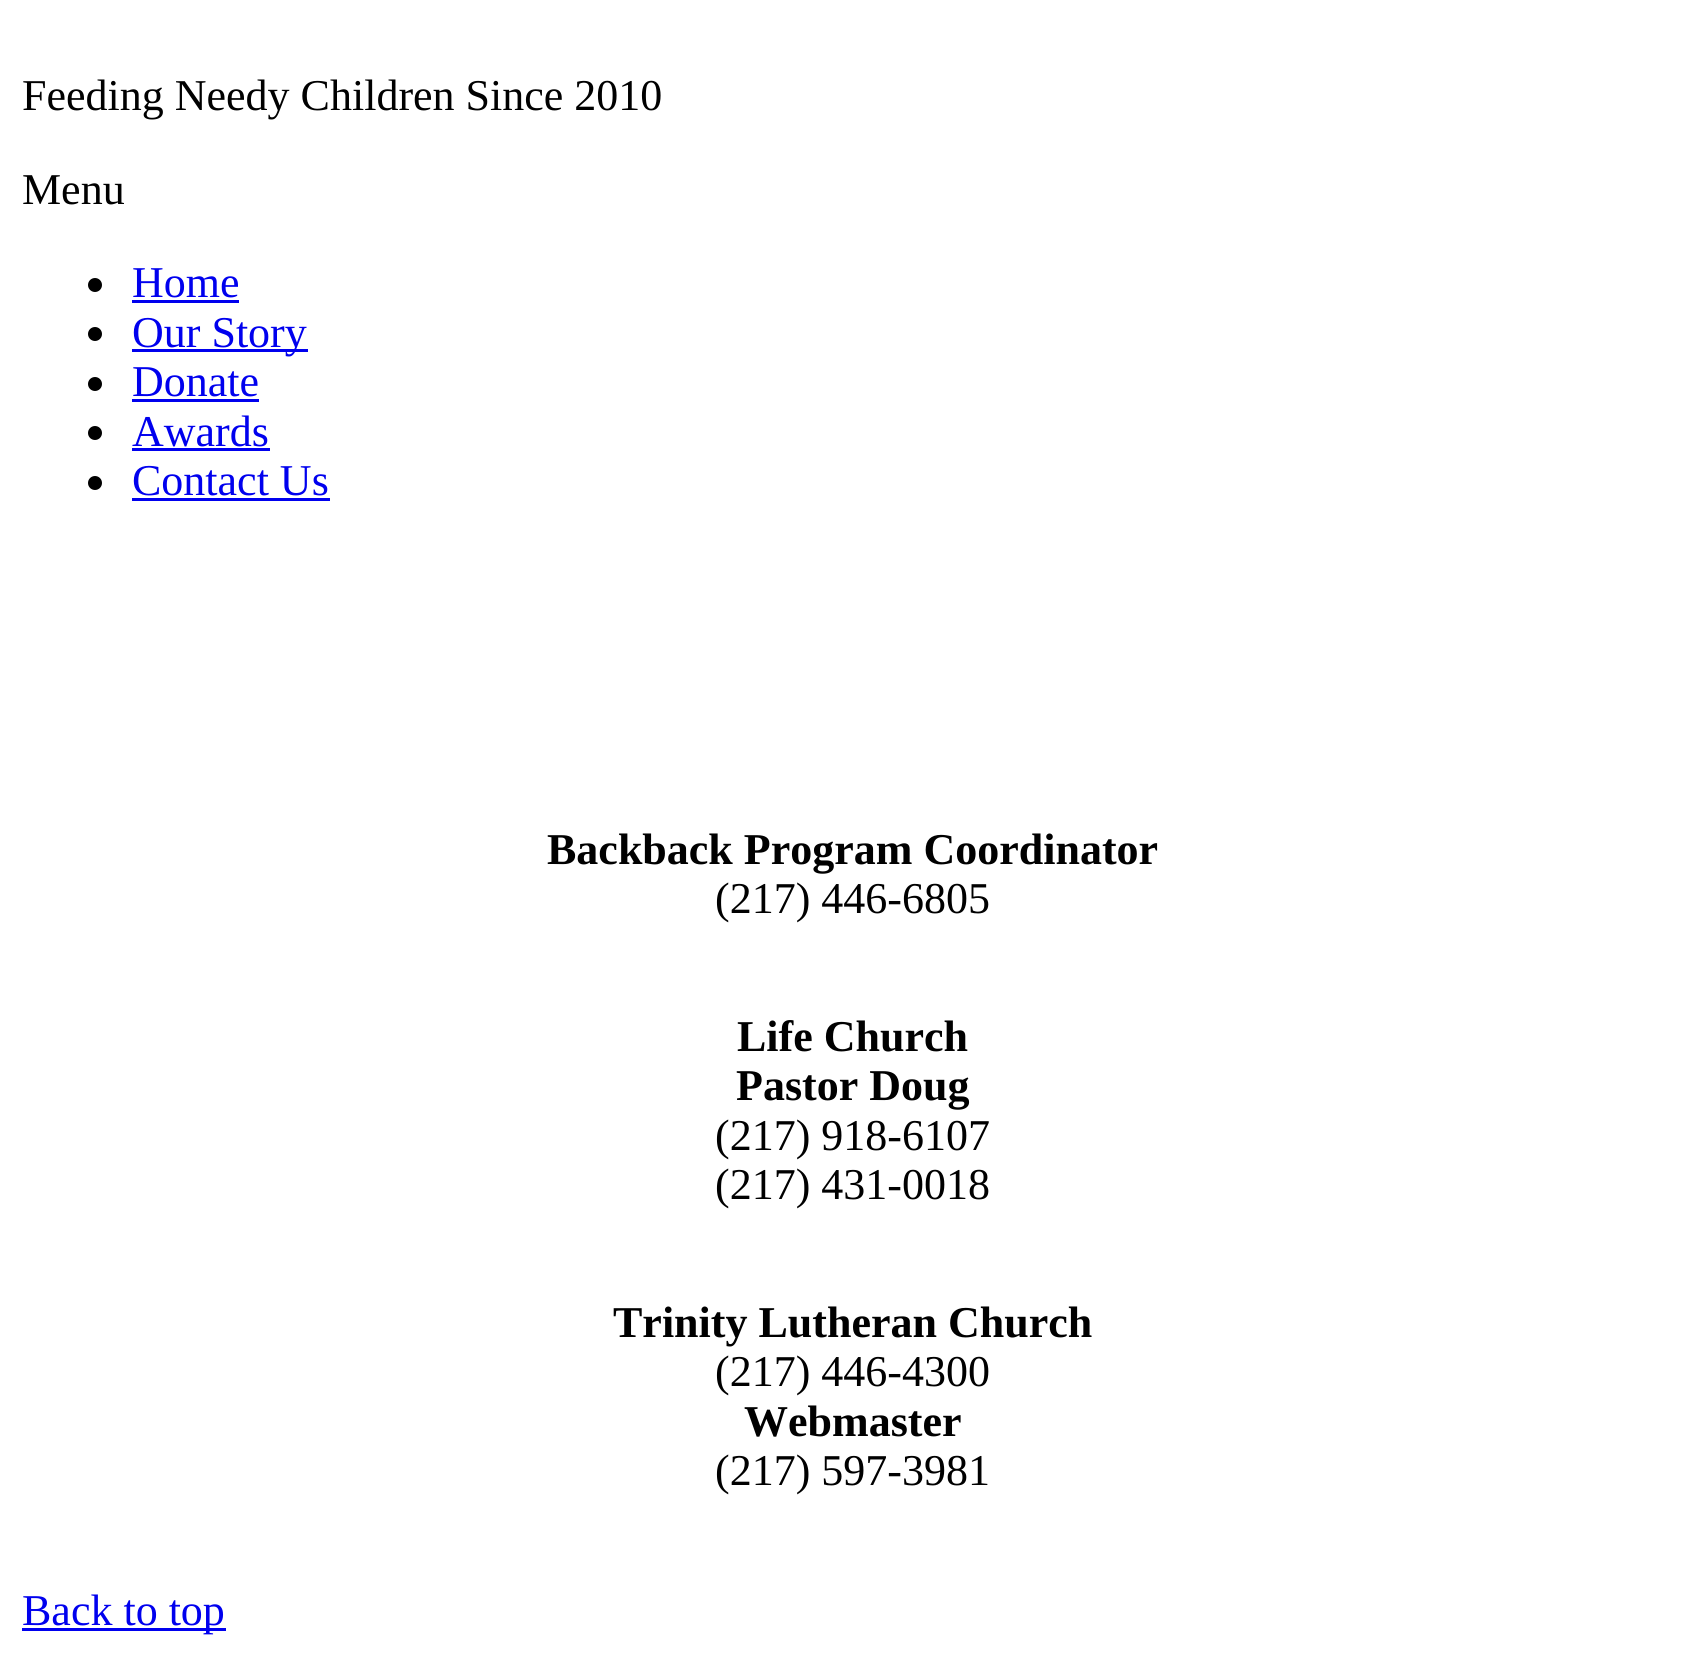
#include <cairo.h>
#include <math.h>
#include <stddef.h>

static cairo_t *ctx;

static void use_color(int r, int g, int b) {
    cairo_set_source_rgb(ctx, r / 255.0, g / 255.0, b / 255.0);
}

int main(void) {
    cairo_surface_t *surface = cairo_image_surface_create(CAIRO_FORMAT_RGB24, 1703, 1679);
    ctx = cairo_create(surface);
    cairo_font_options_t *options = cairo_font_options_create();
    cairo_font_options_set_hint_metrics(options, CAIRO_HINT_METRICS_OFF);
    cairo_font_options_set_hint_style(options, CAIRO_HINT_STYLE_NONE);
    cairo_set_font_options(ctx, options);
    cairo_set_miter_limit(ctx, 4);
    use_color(255, 255, 255);
    cairo_paint(ctx);
    cairo_select_font_face(ctx, "Liberation Serif", CAIRO_FONT_SLANT_NORMAL, CAIRO_FONT_WEIGHT_NORMAL);
    cairo_set_font_size(ctx, 44);
    use_color(0, 0, 0);
    cairo_move_to(ctx, 22, 110);
    cairo_show_text(ctx, "Feeding Needy Children Since 2010");
    cairo_move_to(ctx, 22, 204);
    cairo_show_text(ctx, "Menu");
    cairo_new_path(ctx);
    cairo_arc(ctx, 95, 285, 7, 0, 2 * M_PI);
    cairo_fill(ctx);
    use_color(0, 0, 238);
    cairo_move_to(ctx, 132, 297);
    cairo_show_text(ctx, "Home");
    cairo_rectangle(ctx, 132, 300, 107, 3);
    cairo_fill(ctx);
    use_color(0, 0, 0);
    cairo_arc(ctx, 95, 334, 7, 0, 2 * M_PI);
    cairo_fill(ctx);
    use_color(0, 0, 238);
    cairo_rectangle(ctx, 132, 349, 176, 3);
    cairo_fill(ctx);
    cairo_move_to(ctx, 132, 347);
    cairo_show_text(ctx, "Our Story");
    use_color(0, 0, 0);
    cairo_new_path(ctx);
    cairo_arc(ctx, 95, 384, 7, 0, 2 * M_PI);
    cairo_fill(ctx);
    use_color(0, 0, 238);
    cairo_move_to(ctx, 132, 396);
    cairo_show_text(ctx, "Donate");
    cairo_rectangle(ctx, 132, 399, 127, 3);
    cairo_fill(ctx);
    use_color(0, 0, 0);
    cairo_arc(ctx, 95, 433, 7, 0, 2 * M_PI);
    cairo_fill(ctx);
    use_color(0, 0, 238);
    cairo_move_to(ctx, 132, 446);
    cairo_show_text(ctx, "Awards");
    cairo_rectangle(ctx, 132, 448, 138, 3);
    cairo_fill(ctx);
    use_color(0, 0, 0);
    cairo_arc(ctx, 95, 483, 7, 0, 2 * M_PI);
    cairo_fill(ctx);
    use_color(0, 0, 238);
    cairo_move_to(ctx, 132, 495);
    cairo_show_text(ctx, "Contact Us");
    cairo_rectangle(ctx, 132, 498, 198, 3);
    cairo_fill(ctx);
    cairo_select_font_face(ctx, "Liberation Serif", CAIRO_FONT_SLANT_NORMAL, CAIRO_FONT_WEIGHT_BOLD);
    use_color(0, 0, 0);
    cairo_move_to(ctx, 547, 864);
    cairo_show_text(ctx, "Backback Program Coordinator");
    cairo_select_font_face(ctx, "Liberation Serif", CAIRO_FONT_SLANT_NORMAL, CAIRO_FONT_WEIGHT_NORMAL);
    cairo_move_to(ctx, 715, 913);
    cairo_show_text(ctx, "(217) 446-6805");
    cairo_select_font_face(ctx, "Liberation Serif", CAIRO_FONT_SLANT_NORMAL, CAIRO_FONT_WEIGHT_BOLD);
    cairo_move_to(ctx, 737, 1051);
    cairo_show_text(ctx, "Life Church");
    cairo_move_to(ctx, 736, 1100);
    cairo_show_text(ctx, "Pastor Doug");
    cairo_select_font_face(ctx, "Liberation Serif", CAIRO_FONT_SLANT_NORMAL, CAIRO_FONT_WEIGHT_NORMAL);
    cairo_move_to(ctx, 715, 1150);
    cairo_show_text(ctx, "(217) 918-6107");
    cairo_move_to(ctx, 715, 1199);
    cairo_show_text(ctx, "(217) 431-0018");
    cairo_select_font_face(ctx, "Liberation Serif", CAIRO_FONT_SLANT_NORMAL, CAIRO_FONT_WEIGHT_BOLD);
    cairo_move_to(ctx, 613, 1337);
    cairo_show_text(ctx, "Trinity Lutheran Church");
    cairo_select_font_face(ctx, "Liberation Serif", CAIRO_FONT_SLANT_NORMAL, CAIRO_FONT_WEIGHT_NORMAL);
    cairo_move_to(ctx, 715, 1386);
    cairo_show_text(ctx, "(217) 446-4300");
    cairo_select_font_face(ctx, "Liberation Serif", CAIRO_FONT_SLANT_NORMAL, CAIRO_FONT_WEIGHT_BOLD);
    cairo_move_to(ctx, 744, 1436);
    cairo_show_text(ctx, "Webmaster");
    cairo_select_font_face(ctx, "Liberation Serif", CAIRO_FONT_SLANT_NORMAL, CAIRO_FONT_WEIGHT_NORMAL);
    cairo_move_to(ctx, 715, 1485);
    cairo_show_text(ctx, "(217) 597-3981");
    use_color(0, 0, 238);
    cairo_rectangle(ctx, 22, 1628, 204, 3);
    cairo_fill(ctx);
    cairo_move_to(ctx, 22, 1625);
    cairo_show_text(ctx, "Back to top");
    cairo_surface_write_to_png(surface, "result.png");
    cairo_font_options_destroy(options);
    cairo_destroy(ctx);
    cairo_surface_destroy(surface);
    return 0;
}
